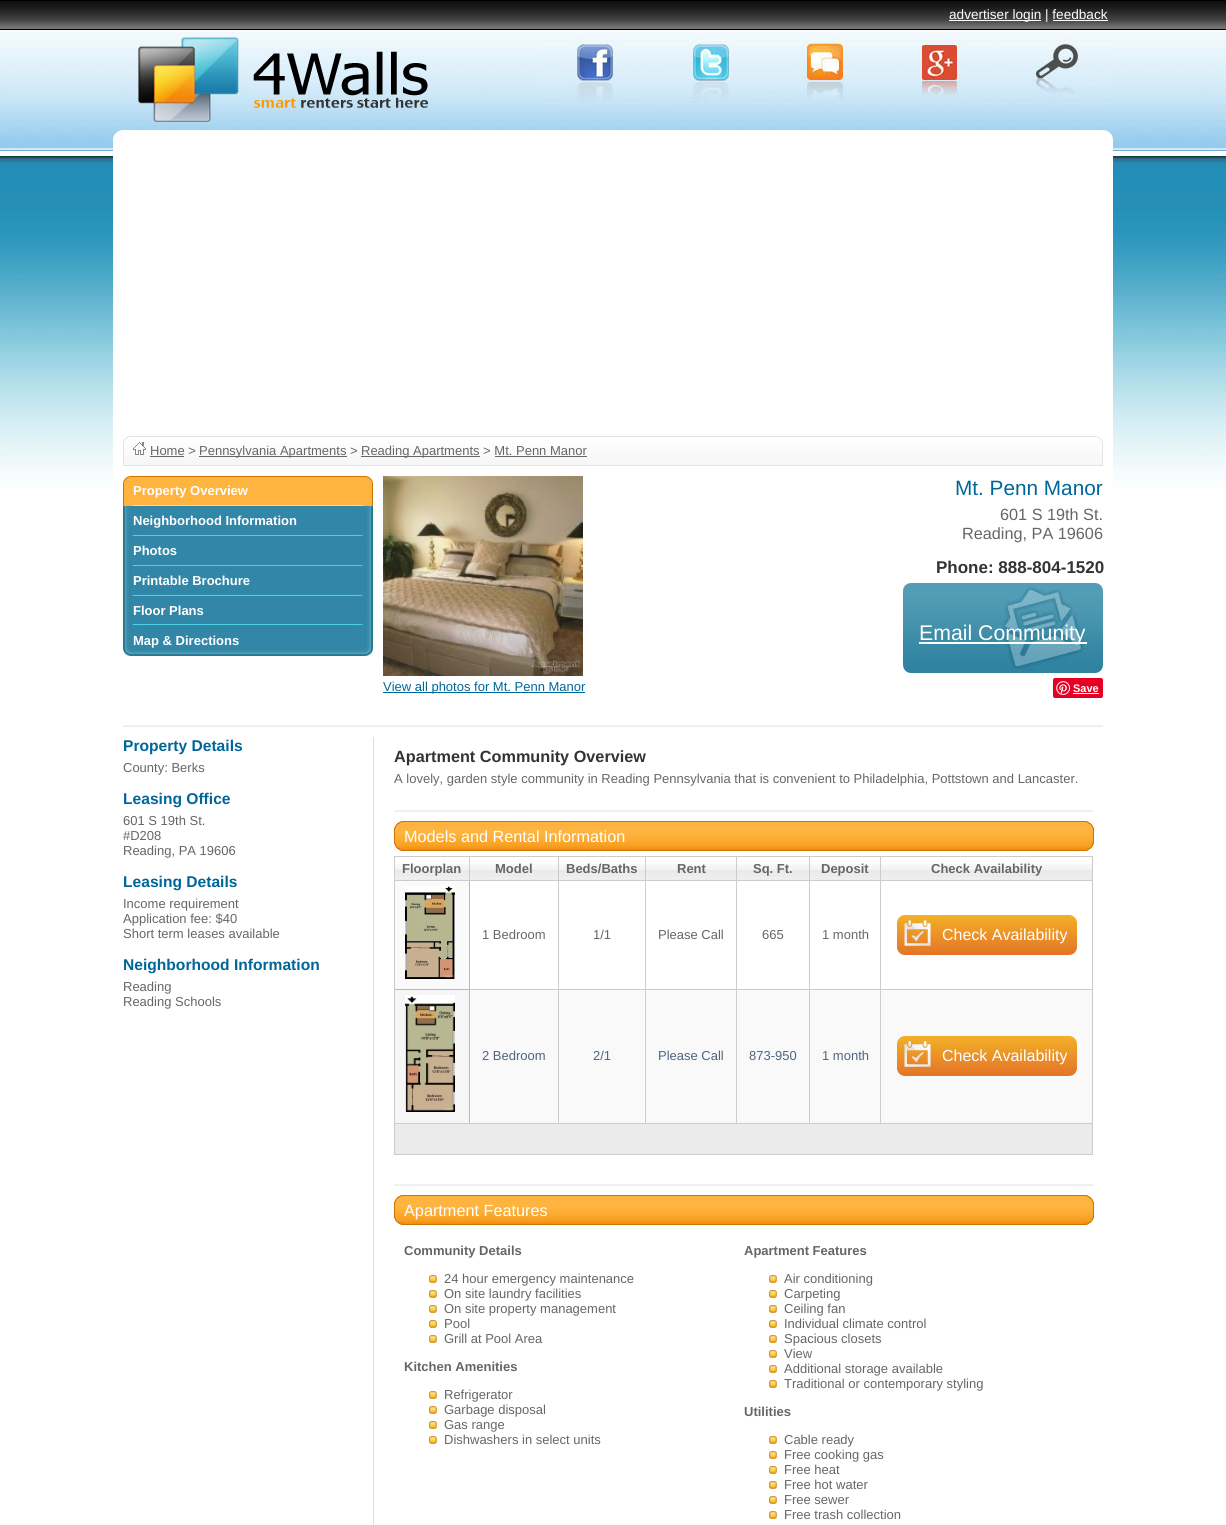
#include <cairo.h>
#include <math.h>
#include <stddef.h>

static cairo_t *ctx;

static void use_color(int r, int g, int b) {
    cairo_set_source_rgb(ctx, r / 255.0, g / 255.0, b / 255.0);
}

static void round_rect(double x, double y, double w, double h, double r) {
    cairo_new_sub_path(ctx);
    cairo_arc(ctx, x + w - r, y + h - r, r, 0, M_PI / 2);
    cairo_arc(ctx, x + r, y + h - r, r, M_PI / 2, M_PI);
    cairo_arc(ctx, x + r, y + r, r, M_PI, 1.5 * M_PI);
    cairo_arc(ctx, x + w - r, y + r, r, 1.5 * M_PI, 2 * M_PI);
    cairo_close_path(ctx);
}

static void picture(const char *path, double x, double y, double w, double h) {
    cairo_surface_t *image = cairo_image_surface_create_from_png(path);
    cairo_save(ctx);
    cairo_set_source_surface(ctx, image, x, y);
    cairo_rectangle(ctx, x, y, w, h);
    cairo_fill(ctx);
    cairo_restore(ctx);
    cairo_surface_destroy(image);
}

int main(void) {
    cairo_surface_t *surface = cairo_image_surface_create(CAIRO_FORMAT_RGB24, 1226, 1525);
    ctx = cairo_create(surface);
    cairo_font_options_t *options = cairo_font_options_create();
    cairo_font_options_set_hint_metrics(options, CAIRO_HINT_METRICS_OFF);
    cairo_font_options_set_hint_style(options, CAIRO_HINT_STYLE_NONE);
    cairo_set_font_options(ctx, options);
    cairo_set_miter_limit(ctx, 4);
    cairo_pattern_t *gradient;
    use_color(255, 255, 255);
    cairo_paint(ctx);
    picture("img1.png", 0, 0, 1226, 488);
    use_color(255, 255, 255);
    cairo_rectangle(ctx, 949, 20, 92, 1);
    cairo_fill(ctx);
    cairo_select_font_face(ctx, "Liberation Sans", CAIRO_FONT_SLANT_NORMAL, CAIRO_FONT_WEIGHT_NORMAL);
    cairo_set_font_size(ctx, 13.6);
    cairo_move_to(ctx, 949, 19);
    cairo_show_text(ctx, "advertiser login | feedback");
    cairo_rectangle(ctx, 1053, 20, 55, 1);
    cairo_fill(ctx);
    picture("img2.png", 113, 130, 1000, 10);
    picture("img3.png", 138, 37, 290, 85);
    picture("img4.png", 538, 39, 115, 67);
    picture("img5.png", 653, 39, 115, 67);
    picture("img6.png", 768, 39, 115, 67);
    picture("img7.png", 883, 39, 115, 67);
    picture("img8.png", 999, 39, 114, 67);
    cairo_rectangle(ctx, 113, 140, 1000, 348);
    cairo_fill(ctx);
    picture("img9.png", 123, 436, 980, 30);
    picture("img10.png", 133, 442, 13, 13);
    cairo_set_font_size(ctx, 13);
    use_color(102, 102, 102);
    cairo_move_to(ctx, 150, 455);
    cairo_show_text(ctx, "Home >");
    cairo_rectangle(ctx, 150, 456, 34, 1);
    cairo_fill(ctx);
    cairo_rectangle(ctx, 199, 456, 148, 1);
    cairo_fill(ctx);
    cairo_move_to(ctx, 199, 455);
    cairo_show_text(ctx, "Pennsylvania Apartments >");
    cairo_rectangle(ctx, 361, 456, 119, 1);
    cairo_fill(ctx);
    cairo_move_to(ctx, 361, 455);
    cairo_show_text(ctx, "Reading Apartments > Mt. Penn Manor");
    cairo_rectangle(ctx, 495, 456, 92, 1);
    cairo_fill(ctx);
    picture("img11.png", 123, 476, 250, 30);
    cairo_select_font_face(ctx, "Liberation Sans", CAIRO_FONT_SLANT_NORMAL, CAIRO_FONT_WEIGHT_BOLD);
    use_color(255, 255, 255);
    cairo_move_to(ctx, 133, 495);
    cairo_show_text(ctx, "Property Overview");
    picture("img12.png", 123, 506, 250, 30);
    cairo_move_to(ctx, 133, 525);
    cairo_show_text(ctx, "Neighborhood Information");
    picture("img13.png", 123, 536, 250, 30);
    cairo_move_to(ctx, 133, 555);
    cairo_show_text(ctx, "Photos");
    picture("img14.png", 123, 566, 250, 30);
    cairo_move_to(ctx, 133, 585);
    cairo_show_text(ctx, "Printable Brochure");
    picture("img15.png", 123, 596, 250, 30);
    cairo_move_to(ctx, 133, 615);
    cairo_show_text(ctx, "Floor Plans");
    picture("img16.png", 123, 626, 250, 30);
    cairo_move_to(ctx, 133, 645);
    cairo_show_text(ctx, "Map & Directions");
    cairo_select_font_face(ctx, "Liberation Sans", CAIRO_FONT_SLANT_NORMAL, CAIRO_FONT_WEIGHT_NORMAL);
    cairo_set_font_size(ctx, 20.75);
    use_color(0, 102, 153);
    cairo_move_to(ctx, 955, 495);
    cairo_show_text(ctx, "Mt. Penn Manor");
    cairo_set_font_size(ctx, 16.25);
    use_color(102, 102, 102);
    cairo_move_to(ctx, 1000, 520);
    cairo_show_text(ctx, "601 S 19th St.");
    cairo_move_to(ctx, 962, 539);
    cairo_show_text(ctx, "Reading, PA 19606");
    cairo_select_font_face(ctx, "Liberation Sans", CAIRO_FONT_SLANT_NORMAL, CAIRO_FONT_WEIGHT_BOLD);
    cairo_set_font_size(ctx, 17);
    use_color(51, 51, 51);
    cairo_move_to(ctx, 936, 573);
    cairo_show_text(ctx, "Phone: 888-804-1520");
    picture("img17.png", 903, 583, 200, 90);
    use_color(255, 255, 255);
    cairo_rectangle(ctx, 919, 642, 168, 2);
    cairo_fill(ctx);
    cairo_select_font_face(ctx, "Liberation Sans", CAIRO_FONT_SLANT_NORMAL, CAIRO_FONT_WEIGHT_NORMAL);
    cairo_set_font_size(ctx, 21.25);
    cairo_move_to(ctx, 919, 640);
    cairo_show_text(ctx, "Email Community");
    use_color(230, 0, 35);
    round_rect(1053, 678, 50, 20, 2);
    cairo_fill(ctx);
    picture("img18.png", 1056, 681, 14, 14);
    cairo_select_font_face(ctx, "Liberation Sans", CAIRO_FONT_SLANT_NORMAL, CAIRO_FONT_WEIGHT_BOLD);
    cairo_set_font_size(ctx, 11);
    use_color(255, 255, 255);
    cairo_move_to(ctx, 1073, 692);
    cairo_show_text(ctx, "Save");
    cairo_rectangle(ctx, 1073, 693, 26, 1);
    cairo_fill(ctx);
    picture("img19.png", 383, 476, 200, 200);
    use_color(0, 102, 153);
    cairo_rectangle(ctx, 383, 692, 202, 1);
    cairo_fill(ctx);
    cairo_select_font_face(ctx, "Liberation Sans", CAIRO_FONT_SLANT_NORMAL, CAIRO_FONT_WEIGHT_NORMAL);
    cairo_set_font_size(ctx, 13);
    cairo_move_to(ctx, 383, 691);
    cairo_show_text(ctx, "View all photos for Mt. Penn Manor");
    picture("img20.png", 123, 725, 980, 2);
    cairo_select_font_face(ctx, "Liberation Sans", CAIRO_FONT_SLANT_NORMAL, CAIRO_FONT_WEIGHT_BOLD);
    cairo_set_font_size(ctx, 15.6);
    cairo_move_to(ctx, 123, 751);
    cairo_show_text(ctx, "Property Details");
    cairo_select_font_face(ctx, "Liberation Sans", CAIRO_FONT_SLANT_NORMAL, CAIRO_FONT_WEIGHT_NORMAL);
    cairo_set_font_size(ctx, 13);
    use_color(102, 102, 102);
    cairo_move_to(ctx, 123, 772);
    cairo_show_text(ctx, "County: Berks");
    cairo_select_font_face(ctx, "Liberation Sans", CAIRO_FONT_SLANT_NORMAL, CAIRO_FONT_WEIGHT_BOLD);
    cairo_set_font_size(ctx, 15.6);
    use_color(0, 102, 153);
    cairo_move_to(ctx, 123, 804);
    cairo_show_text(ctx, "Leasing Office");
    cairo_select_font_face(ctx, "Liberation Sans", CAIRO_FONT_SLANT_NORMAL, CAIRO_FONT_WEIGHT_NORMAL);
    cairo_set_font_size(ctx, 13);
    use_color(102, 102, 102);
    cairo_move_to(ctx, 123, 825);
    cairo_show_text(ctx, "601 S 19th St.");
    cairo_move_to(ctx, 123, 840);
    cairo_show_text(ctx, "#D208");
    cairo_move_to(ctx, 123, 855);
    cairo_show_text(ctx, "Reading, PA 19606");
    cairo_select_font_face(ctx, "Liberation Sans", CAIRO_FONT_SLANT_NORMAL, CAIRO_FONT_WEIGHT_BOLD);
    cairo_set_font_size(ctx, 15.6);
    use_color(0, 102, 153);
    cairo_move_to(ctx, 123, 887);
    cairo_show_text(ctx, "Leasing Details");
    cairo_select_font_face(ctx, "Liberation Sans", CAIRO_FONT_SLANT_NORMAL, CAIRO_FONT_WEIGHT_NORMAL);
    cairo_set_font_size(ctx, 13);
    use_color(102, 102, 102);
    cairo_move_to(ctx, 123, 908);
    cairo_show_text(ctx, "Income requirement");
    cairo_move_to(ctx, 123, 923);
    cairo_show_text(ctx, "Application fee: $40");
    cairo_move_to(ctx, 123, 938);
    cairo_show_text(ctx, "Short term leases available");
    cairo_select_font_face(ctx, "Liberation Sans", CAIRO_FONT_SLANT_NORMAL, CAIRO_FONT_WEIGHT_BOLD);
    cairo_set_font_size(ctx, 15.6);
    use_color(0, 102, 153);
    cairo_move_to(ctx, 123, 970);
    cairo_show_text(ctx, "Neighborhood Information");
    cairo_select_font_face(ctx, "Liberation Sans", CAIRO_FONT_SLANT_NORMAL, CAIRO_FONT_WEIGHT_NORMAL);
    cairo_set_font_size(ctx, 13);
    use_color(102, 102, 102);
    cairo_move_to(ctx, 123, 991);
    cairo_show_text(ctx, "Reading");
    cairo_move_to(ctx, 123, 1006);
    cairo_show_text(ctx, "Reading Schools");
    use_color(223, 223, 223);
    cairo_rectangle(ctx, 373, 737, 1, 788);
    cairo_fill(ctx);
    cairo_select_font_face(ctx, "Liberation Sans", CAIRO_FONT_SLANT_NORMAL, CAIRO_FONT_WEIGHT_BOLD);
    cairo_set_font_size(ctx, 16.25);
    use_color(51, 51, 51);
    cairo_move_to(ctx, 394, 762);
    cairo_show_text(ctx, "Apartment Community Overview");
    cairo_select_font_face(ctx, "Liberation Sans", CAIRO_FONT_SLANT_NORMAL, CAIRO_FONT_WEIGHT_NORMAL);
    cairo_set_font_size(ctx, 13);
    use_color(102, 102, 102);
    cairo_move_to(ctx, 394, 783);
    cairo_show_text(ctx, "A lovely, garden style community in Reading Pennsylvania that is convenient to Philadelphia, Pottstown and Lancaster.");
    picture("img21.png", 394, 810, 699, 2);
    picture("img22.png", 1079, 821, 15, 30);
    picture("img23.png", 394, 821, 685, 30);
    cairo_set_font_size(ctx, 16.25);
    use_color(255, 255, 255);
    cairo_move_to(ctx, 404, 842);
    cairo_show_text(ctx, "Models and Rental Information");
    use_color(204, 204, 204);
    cairo_rectangle(ctx, 394, 856, 699, 1);
    cairo_fill(ctx);
    cairo_rectangle(ctx, 1092, 856, 1, 299);
    cairo_fill(ctx);
    cairo_rectangle(ctx, 394, 1154, 699, 1);
    cairo_fill(ctx);
    cairo_rectangle(ctx, 394, 856, 1, 299);
    cairo_fill(ctx);
    picture("img24.png", 395, 864, 74, 16);
    cairo_select_font_face(ctx, "Liberation Sans", CAIRO_FONT_SLANT_NORMAL, CAIRO_FONT_WEIGHT_BOLD);
    cairo_set_font_size(ctx, 13);
    use_color(102, 102, 102);
    cairo_move_to(ctx, 402, 873);
    cairo_show_text(ctx, "Floorplan");
    picture("img25.png", 470, 864, 88, 16);
    use_color(204, 204, 204);
    cairo_rectangle(ctx, 394, 880, 76, 1);
    cairo_fill(ctx);
    cairo_rectangle(ctx, 880, 880, 213, 1);
    cairo_fill(ctx);
    cairo_rectangle(ctx, 880, 989, 213, 1);
    cairo_fill(ctx);
    cairo_rectangle(ctx, 880, 989, 1, 135);
    cairo_fill(ctx);
    cairo_rectangle(ctx, 809, 989, 72, 1);
    cairo_fill(ctx);
    cairo_rectangle(ctx, 880, 880, 1, 110);
    cairo_fill(ctx);
    cairo_rectangle(ctx, 809, 880, 72, 1);
    cairo_fill(ctx);
    cairo_rectangle(ctx, 809, 989, 1, 135);
    cairo_fill(ctx);
    cairo_rectangle(ctx, 736, 989, 74, 1);
    cairo_fill(ctx);
    cairo_rectangle(ctx, 809, 880, 1, 110);
    cairo_fill(ctx);
    cairo_rectangle(ctx, 736, 880, 74, 1);
    cairo_fill(ctx);
    cairo_rectangle(ctx, 736, 989, 1, 135);
    cairo_fill(ctx);
    cairo_rectangle(ctx, 645, 989, 92, 1);
    cairo_fill(ctx);
    cairo_rectangle(ctx, 736, 880, 1, 110);
    cairo_fill(ctx);
    cairo_rectangle(ctx, 645, 880, 92, 1);
    cairo_fill(ctx);
    cairo_rectangle(ctx, 645, 989, 1, 135);
    cairo_fill(ctx);
    cairo_rectangle(ctx, 558, 989, 88, 1);
    cairo_fill(ctx);
    cairo_rectangle(ctx, 645, 880, 1, 110);
    cairo_fill(ctx);
    cairo_rectangle(ctx, 558, 880, 88, 1);
    cairo_fill(ctx);
    cairo_rectangle(ctx, 558, 989, 1, 135);
    cairo_fill(ctx);
    cairo_rectangle(ctx, 558, 856, 1, 134);
    cairo_fill(ctx);
    use_color(173, 187, 202);
    cairo_rectangle(ctx, 469, 989, 1, 135);
    cairo_fill(ctx);
    use_color(204, 204, 204);
    cairo_rectangle(ctx, 469, 989, 90, 1);
    cairo_fill(ctx);
    use_color(173, 187, 202);
    cairo_rectangle(ctx, 469, 880, 1, 110);
    cairo_fill(ctx);
    use_color(204, 204, 204);
    cairo_rectangle(ctx, 469, 880, 90, 1);
    cairo_fill(ctx);
    cairo_rectangle(ctx, 469, 856, 1, 25);
    cairo_fill(ctx);
    use_color(102, 102, 102);
    cairo_move_to(ctx, 495, 873);
    cairo_show_text(ctx, "Model");
    picture("img26.png", 559, 864, 86, 16);
    cairo_move_to(ctx, 566, 873);
    cairo_show_text(ctx, "Beds/Baths");
    picture("img27.png", 646, 864, 90, 16);
    use_color(204, 204, 204);
    cairo_rectangle(ctx, 645, 856, 1, 25);
    cairo_fill(ctx);
    use_color(102, 102, 102);
    cairo_move_to(ctx, 677, 873);
    cairo_show_text(ctx, "Rent");
    picture("img28.png", 737, 864, 72, 16);
    use_color(204, 204, 204);
    cairo_rectangle(ctx, 736, 856, 1, 25);
    cairo_fill(ctx);
    use_color(102, 102, 102);
    cairo_move_to(ctx, 753, 873);
    cairo_show_text(ctx, "Sq. Ft.");
    picture("img29.png", 810, 864, 70, 16);
    use_color(204, 204, 204);
    cairo_rectangle(ctx, 809, 856, 1, 25);
    cairo_fill(ctx);
    use_color(102, 102, 102);
    cairo_move_to(ctx, 821, 873);
    cairo_show_text(ctx, "Deposit");
    picture("img30.png", 881, 864, 211, 16);
    use_color(204, 204, 204);
    cairo_rectangle(ctx, 880, 856, 1, 25);
    cairo_fill(ctx);
    use_color(102, 102, 102);
    cairo_move_to(ctx, 931, 873);
    cairo_show_text(ctx, "Check Availability");
    use_color(250, 250, 251);
    cairo_rectangle(ctx, 395, 881, 74, 108);
    cairo_fill(ctx);
    use_color(173, 187, 202);
    cairo_rectangle(ctx, 394, 989, 76, 1);
    cairo_fill(ctx);
    use_color(204, 204, 204);
    cairo_rectangle(ctx, 394, 989, 1, 1);
    cairo_fill(ctx);
    picture("img31.png", 405, 886, 50, 93);
    cairo_select_font_face(ctx, "Liberation Sans", CAIRO_FONT_SLANT_NORMAL, CAIRO_FONT_WEIGHT_NORMAL);
    use_color(102, 102, 102);
    cairo_move_to(ctx, 482, 939);
    cairo_show_text(ctx, "1 Bedroom");
    cairo_move_to(ctx, 593, 939);
    cairo_show_text(ctx, "1/1");
    cairo_move_to(ctx, 658, 939);
    cairo_show_text(ctx, "Please Call");
    cairo_move_to(ctx, 762, 939);
    cairo_show_text(ctx, "665");
    cairo_move_to(ctx, 822, 939);
    cairo_show_text(ctx, "1 month");
    gradient = cairo_pattern_create_linear(987, 915, 987, 955);
    cairo_pattern_add_color_stop_rgba(gradient, 0, 0.953, 0.69, 0.153, 1);
    cairo_pattern_add_color_stop_rgba(gradient, 1, 0.894, 0.455, 0.157, 1);
    cairo_set_source(ctx, gradient);
    cairo_pattern_destroy(gradient);
    round_rect(897, 915, 180, 40, 8);
    cairo_fill(ctx);
    picture("img32.png", 904, 920, 27, 26);
    cairo_set_font_size(ctx, 16);
    use_color(255, 255, 255);
    cairo_move_to(ctx, 942, 940);
    cairo_show_text(ctx, "Check Availability");
    use_color(246, 246, 246);
    cairo_rectangle(ctx, 395, 990, 74, 133);
    cairo_fill(ctx);
    picture("img33.png", 405, 995, 50, 117);
    use_color(249, 249, 249);
    cairo_rectangle(ctx, 470, 990, 88, 133);
    cairo_fill(ctx);
    cairo_set_font_size(ctx, 13);
    use_color(79, 100, 128);
    cairo_move_to(ctx, 482, 1060);
    cairo_show_text(ctx, "2 Bedroom");
    use_color(249, 249, 249);
    cairo_rectangle(ctx, 559, 990, 86, 133);
    cairo_fill(ctx);
    use_color(79, 100, 128);
    cairo_move_to(ctx, 593, 1060);
    cairo_show_text(ctx, "2/1");
    use_color(249, 249, 249);
    cairo_rectangle(ctx, 646, 990, 90, 133);
    cairo_fill(ctx);
    use_color(79, 100, 128);
    cairo_move_to(ctx, 658, 1060);
    cairo_show_text(ctx, "Please Call");
    use_color(249, 249, 249);
    cairo_rectangle(ctx, 737, 990, 72, 133);
    cairo_fill(ctx);
    use_color(79, 100, 128);
    cairo_move_to(ctx, 749, 1060);
    cairo_show_text(ctx, "873-950");
    use_color(249, 249, 249);
    cairo_rectangle(ctx, 810, 990, 70, 133);
    cairo_fill(ctx);
    use_color(79, 100, 128);
    cairo_move_to(ctx, 822, 1060);
    cairo_show_text(ctx, "1 month");
    use_color(249, 249, 249);
    cairo_rectangle(ctx, 881, 990, 211, 133);
    cairo_fill(ctx);
    gradient = cairo_pattern_create_linear(987, 1036, 987, 1076);
    cairo_pattern_add_color_stop_rgba(gradient, 0, 0.953, 0.69, 0.153, 1);
    cairo_pattern_add_color_stop_rgba(gradient, 1, 0.894, 0.455, 0.157, 1);
    cairo_set_source(ctx, gradient);
    cairo_pattern_destroy(gradient);
    round_rect(897, 1036, 180, 40, 8);
    cairo_fill(ctx);
    picture("img32.png", 904, 1041, 27, 26);
    cairo_set_font_size(ctx, 16);
    use_color(255, 255, 255);
    cairo_move_to(ctx, 942, 1061);
    cairo_show_text(ctx, "Check Availability");
    use_color(235, 235, 235);
    cairo_rectangle(ctx, 395, 1124, 697, 30);
    cairo_fill(ctx);
    use_color(204, 204, 204);
    cairo_rectangle(ctx, 394, 1123, 699, 1);
    cairo_fill(ctx);
    picture("img21.png", 394, 1184, 699, 2);
    picture("img22.png", 1079, 1195, 15, 30);
    picture("img23.png", 394, 1195, 685, 30);
    cairo_set_font_size(ctx, 16.25);
    use_color(255, 255, 255);
    cairo_move_to(ctx, 404, 1216);
    cairo_show_text(ctx, "Apartment Features");
    cairo_select_font_face(ctx, "Liberation Sans", CAIRO_FONT_SLANT_NORMAL, CAIRO_FONT_WEIGHT_BOLD);
    cairo_set_font_size(ctx, 13);
    use_color(102, 102, 102);
    cairo_move_to(ctx, 404, 1255);
    cairo_show_text(ctx, "Community Details");
    picture("img34.png", 429, 1275, 8, 8);
    cairo_select_font_face(ctx, "Liberation Sans", CAIRO_FONT_SLANT_NORMAL, CAIRO_FONT_WEIGHT_NORMAL);
    cairo_move_to(ctx, 444, 1283);
    cairo_show_text(ctx, "24 hour emergency maintenance");
    picture("img34.png", 429, 1290, 8, 8);
    cairo_move_to(ctx, 444, 1298);
    cairo_show_text(ctx, "On site laundry facilities");
    picture("img34.png", 429, 1305, 8, 8);
    cairo_move_to(ctx, 444, 1313);
    cairo_show_text(ctx, "On site property management");
    picture("img34.png", 429, 1320, 8, 8);
    cairo_move_to(ctx, 444, 1328);
    cairo_show_text(ctx, "Pool");
    picture("img34.png", 429, 1335, 8, 8);
    cairo_move_to(ctx, 444, 1343);
    cairo_show_text(ctx, "Grill at Pool Area");
    cairo_select_font_face(ctx, "Liberation Sans", CAIRO_FONT_SLANT_NORMAL, CAIRO_FONT_WEIGHT_BOLD);
    cairo_move_to(ctx, 404, 1371);
    cairo_show_text(ctx, "Kitchen Amenities");
    picture("img34.png", 429, 1391, 8, 8);
    cairo_select_font_face(ctx, "Liberation Sans", CAIRO_FONT_SLANT_NORMAL, CAIRO_FONT_WEIGHT_NORMAL);
    cairo_move_to(ctx, 444, 1399);
    cairo_show_text(ctx, "Refrigerator");
    picture("img34.png", 429, 1406, 8, 8);
    cairo_move_to(ctx, 444, 1414);
    cairo_show_text(ctx, "Garbage disposal");
    picture("img34.png", 429, 1421, 8, 8);
    cairo_move_to(ctx, 444, 1429);
    cairo_show_text(ctx, "Gas range");
    picture("img34.png", 429, 1436, 8, 8);
    cairo_move_to(ctx, 444, 1444);
    cairo_show_text(ctx, "Dishwashers in select units");
    cairo_select_font_face(ctx, "Liberation Sans", CAIRO_FONT_SLANT_NORMAL, CAIRO_FONT_WEIGHT_BOLD);
    cairo_move_to(ctx, 744, 1255);
    cairo_show_text(ctx, "Apartment Features");
    picture("img34.png", 769, 1275, 8, 8);
    cairo_select_font_face(ctx, "Liberation Sans", CAIRO_FONT_SLANT_NORMAL, CAIRO_FONT_WEIGHT_NORMAL);
    cairo_move_to(ctx, 784, 1283);
    cairo_show_text(ctx, "Air conditioning");
    picture("img34.png", 769, 1290, 8, 8);
    cairo_move_to(ctx, 784, 1298);
    cairo_show_text(ctx, "Carpeting");
    picture("img34.png", 769, 1305, 8, 8);
    cairo_move_to(ctx, 784, 1313);
    cairo_show_text(ctx, "Ceiling fan");
    picture("img34.png", 769, 1320, 8, 8);
    cairo_move_to(ctx, 784, 1328);
    cairo_show_text(ctx, "Individual climate control");
    picture("img34.png", 769, 1335, 8, 8);
    cairo_move_to(ctx, 784, 1343);
    cairo_show_text(ctx, "Spacious closets");
    picture("img34.png", 769, 1350, 8, 8);
    cairo_move_to(ctx, 784, 1358);
    cairo_show_text(ctx, "View");
    picture("img34.png", 769, 1365, 8, 8);
    cairo_move_to(ctx, 784, 1373);
    cairo_show_text(ctx, "Additional storage available");
    picture("img34.png", 769, 1380, 8, 8);
    cairo_move_to(ctx, 784, 1388);
    cairo_show_text(ctx, "Traditional or contemporary styling");
    cairo_select_font_face(ctx, "Liberation Sans", CAIRO_FONT_SLANT_NORMAL, CAIRO_FONT_WEIGHT_BOLD);
    cairo_move_to(ctx, 744, 1416);
    cairo_show_text(ctx, "Utilities");
    picture("img34.png", 769, 1436, 8, 8);
    cairo_select_font_face(ctx, "Liberation Sans", CAIRO_FONT_SLANT_NORMAL, CAIRO_FONT_WEIGHT_NORMAL);
    cairo_move_to(ctx, 784, 1444);
    cairo_show_text(ctx, "Cable ready");
    picture("img34.png", 769, 1451, 8, 8);
    cairo_move_to(ctx, 784, 1459);
    cairo_show_text(ctx, "Free cooking gas");
    picture("img34.png", 769, 1466, 8, 8);
    cairo_move_to(ctx, 784, 1474);
    cairo_show_text(ctx, "Free heat");
    picture("img34.png", 769, 1481, 8, 8);
    cairo_move_to(ctx, 784, 1489);
    cairo_show_text(ctx, "Free hot water");
    picture("img34.png", 769, 1496, 8, 8);
    cairo_move_to(ctx, 784, 1504);
    cairo_show_text(ctx, "Free sewer");
    picture("img34.png", 769, 1511, 8, 8);
    cairo_move_to(ctx, 784, 1519);
    cairo_show_text(ctx, "Free trash collection");
    cairo_surface_write_to_png(surface, "result.png");
    cairo_font_options_destroy(options);
    cairo_destroy(ctx);
    cairo_surface_destroy(surface);
    return 0;
}
